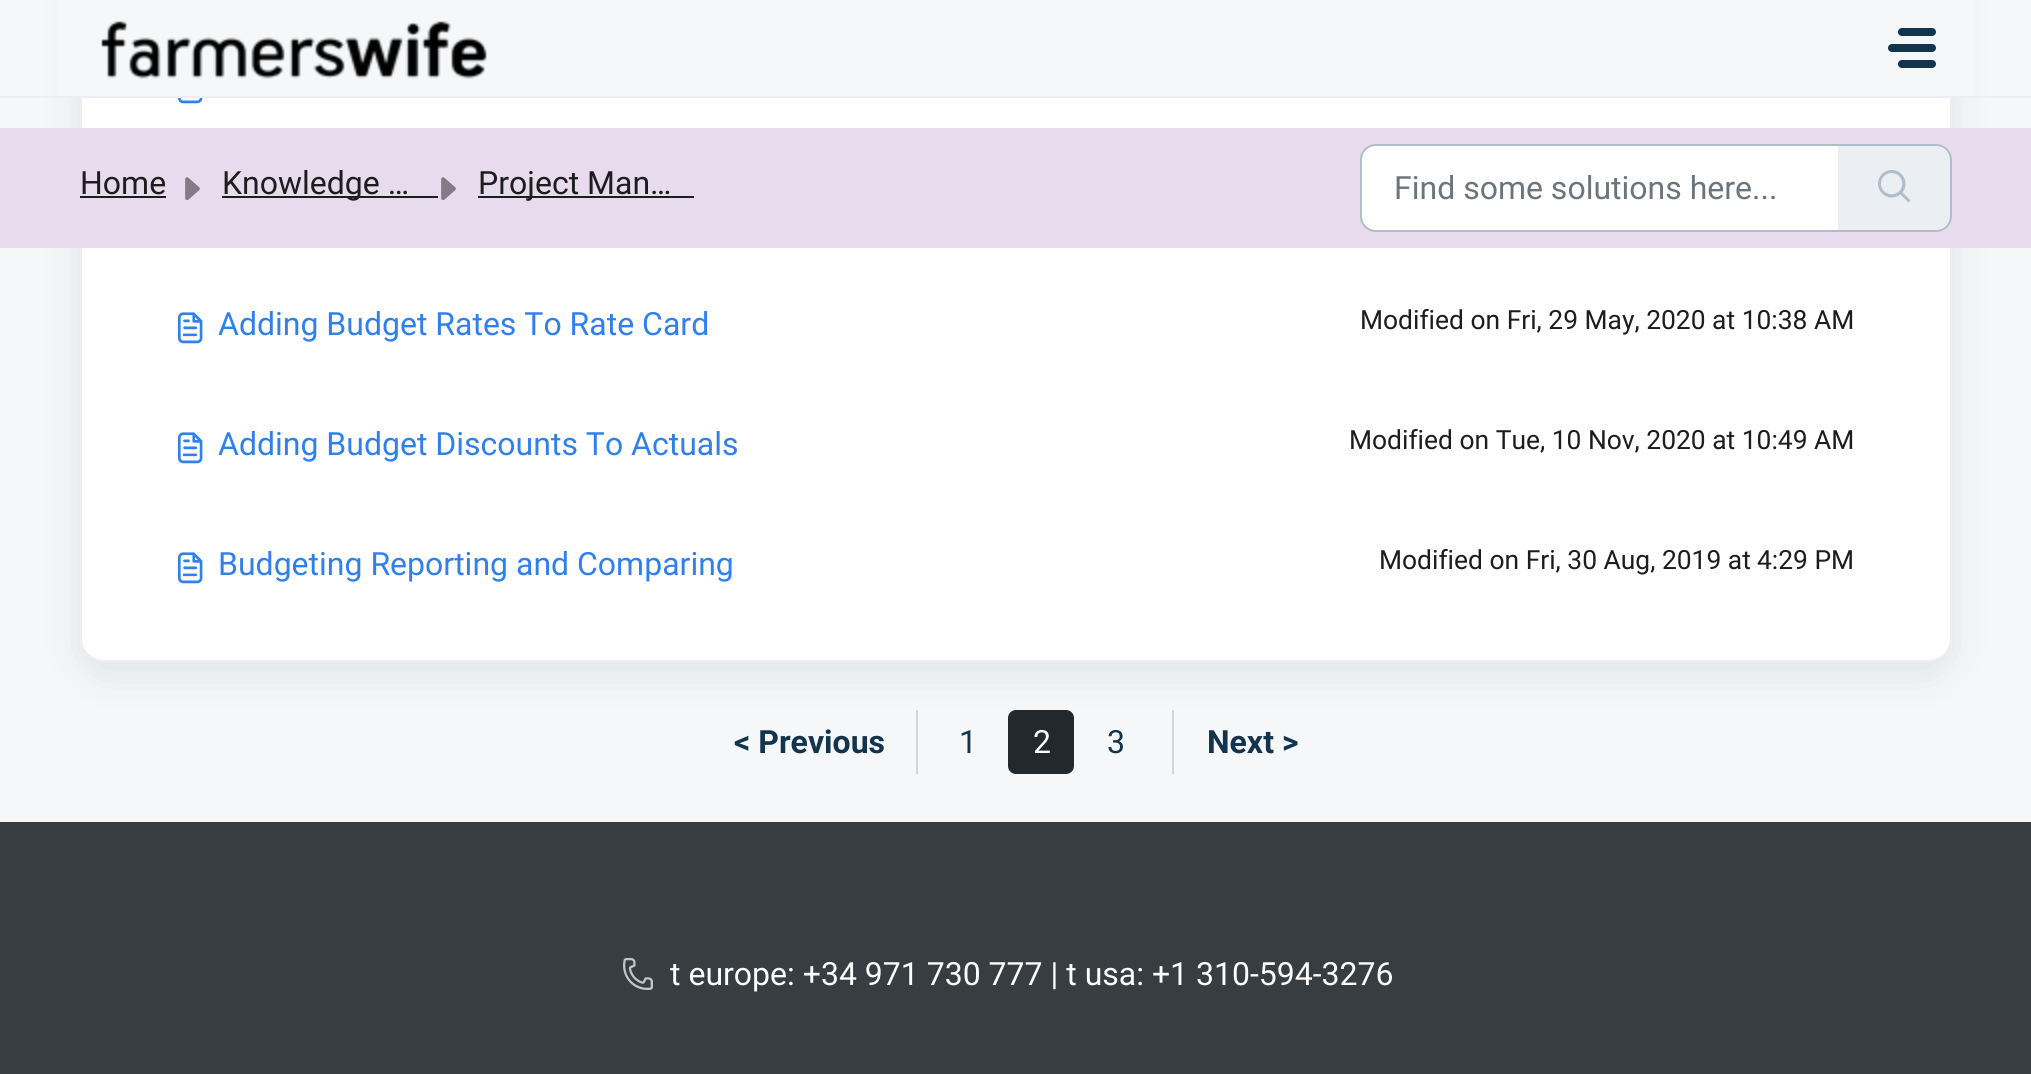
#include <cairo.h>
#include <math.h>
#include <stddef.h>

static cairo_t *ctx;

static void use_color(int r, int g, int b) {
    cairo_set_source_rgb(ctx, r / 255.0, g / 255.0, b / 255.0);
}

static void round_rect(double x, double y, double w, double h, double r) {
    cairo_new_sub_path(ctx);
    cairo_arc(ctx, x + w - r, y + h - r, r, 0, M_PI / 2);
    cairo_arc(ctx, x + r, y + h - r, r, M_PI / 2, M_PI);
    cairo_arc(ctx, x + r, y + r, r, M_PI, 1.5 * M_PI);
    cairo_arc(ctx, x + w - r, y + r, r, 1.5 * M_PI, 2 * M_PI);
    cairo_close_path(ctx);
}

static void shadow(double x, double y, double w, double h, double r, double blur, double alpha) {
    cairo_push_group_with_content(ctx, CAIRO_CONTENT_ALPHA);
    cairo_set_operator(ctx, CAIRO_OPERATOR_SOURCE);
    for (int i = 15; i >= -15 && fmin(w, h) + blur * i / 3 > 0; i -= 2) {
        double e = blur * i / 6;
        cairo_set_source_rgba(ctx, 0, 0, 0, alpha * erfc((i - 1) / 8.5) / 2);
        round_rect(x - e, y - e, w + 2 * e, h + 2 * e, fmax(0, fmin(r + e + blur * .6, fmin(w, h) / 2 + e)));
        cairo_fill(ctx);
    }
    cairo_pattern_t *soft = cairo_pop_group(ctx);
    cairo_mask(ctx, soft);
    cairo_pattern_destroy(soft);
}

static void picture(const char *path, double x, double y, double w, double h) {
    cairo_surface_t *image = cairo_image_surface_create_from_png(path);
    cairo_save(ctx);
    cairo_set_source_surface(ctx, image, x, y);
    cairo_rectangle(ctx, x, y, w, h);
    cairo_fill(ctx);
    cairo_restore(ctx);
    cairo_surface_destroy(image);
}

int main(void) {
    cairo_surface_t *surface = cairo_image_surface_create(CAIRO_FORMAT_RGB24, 2031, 1074);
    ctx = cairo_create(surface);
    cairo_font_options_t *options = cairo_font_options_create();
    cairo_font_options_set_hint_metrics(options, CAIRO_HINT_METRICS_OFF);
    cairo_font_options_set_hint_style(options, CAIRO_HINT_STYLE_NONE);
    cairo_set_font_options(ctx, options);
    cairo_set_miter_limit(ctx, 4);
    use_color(245, 247, 249);
    cairo_paint(ctx);
    use_color(39, 49, 58);
    shadow(80, -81, 1872, 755, 24, 19, 0.1);
    use_color(255, 255, 255);
    round_rect(81, -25, 1870, 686, 23);
    cairo_fill_preserve(ctx);
    use_color(235, 239, 243);
    cairo_stroke(ctx);
    use_color(245, 247, 249);
    cairo_rectangle(ctx, 58, 0, 1916, 96);
    cairo_fill(ctx);
    use_color(235, 239, 243);
    cairo_rectangle(ctx, 0, 96, 2031, 2);
    cairo_fill(ctx);
    picture("img1.png", 101, 21, 386, 58);
    use_color(18, 52, 77);
    round_rect(1898, 28, 38, 8, 4);
    cairo_fill(ctx);
    round_rect(1888, 44, 48, 8, 4);
    cairo_fill(ctx);
    round_rect(1898, 60, 38, 8, 4);
    cairo_fill(ctx);
    use_color(233, 219, 238);
    cairo_rectangle(ctx, 0, 128, 2031, 120);
    cairo_fill(ctx);
    cairo_select_font_face(ctx, "Roboto", CAIRO_FONT_SLANT_NORMAL, CAIRO_FONT_WEIGHT_NORMAL);
    cairo_set_font_size(ctx, 32);
    use_color(29, 29, 29);
    cairo_move_to(ctx, 80, 194);
    cairo_show_text(ctx, "Home");
    cairo_rectangle(ctx, 80, 196, 86, 2);
    cairo_fill(ctx);
    picture("img2.png", 185, 177, 15, 24);
    cairo_rectangle(ctx, 222, 196, 216, 2);
    cairo_fill(ctx);
    cairo_move_to(ctx, 222, 194);
    cairo_show_text(ctx, "Knowledge …");
    picture("img2.png", 441, 177, 15, 24);
    cairo_rectangle(ctx, 478, 196, 216, 2);
    cairo_fill(ctx);
    cairo_move_to(ctx, 478, 194);
    cairo_show_text(ctx, "Project Man…");
    use_color(255, 255, 255);
    cairo_new_path(ctx);
    cairo_move_to(ctx, 1376, 145);
    cairo_line_to(ctx, 1839, 145);
    cairo_line_to(ctx, 1839, 231);
    cairo_line_to(ctx, 1376, 231);
    cairo_curve_to(ctx, 1367.5, 231, 1361, 224.5, 1361, 216);
    cairo_line_to(ctx, 1361, 160);
    cairo_curve_to(ctx, 1361, 151.5, 1367.5, 145, 1376, 145);
    cairo_close_path(ctx);
    cairo_fill_preserve(ctx);
    use_color(177, 189, 200);
    cairo_stroke(ctx);
    use_color(108, 117, 125);
    cairo_move_to(ctx, 1394, 199);
    cairo_show_text(ctx, "Find some solutions here...");
    use_color(235, 239, 243);
    cairo_new_path(ctx);
    cairo_move_to(ctx, 1838, 144);
    cairo_line_to(ctx, 1936, 144);
    cairo_curve_to(ctx, 1945, 144, 1952, 151, 1952, 160);
    cairo_line_to(ctx, 1952, 216);
    cairo_curve_to(ctx, 1952, 225, 1945, 232, 1936, 232);
    cairo_line_to(ctx, 1838, 232);
    cairo_close_path(ctx);
    cairo_fill(ctx);
    use_color(177, 189, 200);
    cairo_set_fill_rule(ctx, CAIRO_FILL_RULE_EVEN_ODD);
    cairo_new_path(ctx);
    cairo_move_to(ctx, 1838, 144);
    cairo_line_to(ctx, 1936, 144);
    cairo_curve_to(ctx, 1945, 144, 1952, 151, 1952, 160);
    cairo_line_to(ctx, 1952, 216);
    cairo_curve_to(ctx, 1952, 225, 1945, 232, 1936, 232);
    cairo_line_to(ctx, 1838, 232);
    cairo_close_path(ctx);
    cairo_move_to(ctx, 1838, 146);
    cairo_line_to(ctx, 1936, 146);
    cairo_curve_to(ctx, 1944, 146, 1950, 152, 1950, 160);
    cairo_line_to(ctx, 1950, 216);
    cairo_curve_to(ctx, 1950, 224, 1944, 230, 1936, 230);
    cairo_line_to(ctx, 1838, 230);
    cairo_close_path(ctx);
    cairo_fill(ctx);
    picture("img3.png", 1878, 170, 32, 32);
    picture("img4.png", 178, 98, 25, 6);
    picture("img5.png", 178, 312, 25, 32);
    use_color(47, 128, 237);
    cairo_move_to(ctx, 218, 335);
    cairo_show_text(ctx, "Adding Budget Rates To Rate Card");
    cairo_set_font_size(ctx, 26.4);
    use_color(29, 29, 29);
    cairo_move_to(ctx, 1360, 329);
    cairo_show_text(ctx, "Modified on Fri, 29 May, 2020 at 10:38 AM");
    picture("img5.png", 178, 432, 25, 32);
    cairo_set_font_size(ctx, 32);
    use_color(47, 128, 237);
    cairo_move_to(ctx, 218, 455);
    cairo_show_text(ctx, "Adding Budget Discounts To Actuals");
    cairo_set_font_size(ctx, 26.4);
    use_color(29, 29, 29);
    cairo_move_to(ctx, 1349, 449);
    cairo_show_text(ctx, "Modified on Tue, 10 Nov, 2020 at 10:49 AM");
    picture("img5.png", 178, 552, 25, 32);
    cairo_set_font_size(ctx, 32);
    use_color(47, 128, 237);
    cairo_move_to(ctx, 218, 575);
    cairo_show_text(ctx, "Budgeting Reporting and Comparing");
    cairo_set_font_size(ctx, 26.4);
    use_color(29, 29, 29);
    cairo_move_to(ctx, 1379, 569);
    cairo_show_text(ctx, "Modified on Fri, 30 Aug, 2019 at");
    cairo_move_to(ctx, 1757, 569);
    cairo_show_text(ctx, "4:29 PM");
    use_color(207, 215, 223);
    cairo_rectangle(ctx, 916, 710, 2, 64);
    cairo_fill(ctx);
    cairo_select_font_face(ctx, "Roboto", CAIRO_FONT_SLANT_NORMAL, CAIRO_FONT_WEIGHT_BOLD);
    cairo_set_font_size(ctx, 32);
    use_color(18, 52, 77);
    cairo_move_to(ctx, 734, 753);
    cairo_show_text(ctx, "< Previous");
    cairo_select_font_face(ctx, "Roboto", CAIRO_FONT_SLANT_NORMAL, CAIRO_FONT_WEIGHT_NORMAL);
    cairo_move_to(ctx, 959, 753);
    cairo_show_text(ctx, "1");
    use_color(34, 40, 43);
    round_rect(1008, 710, 66, 64, 8);
    cairo_fill(ctx);
    use_color(254, 254, 254);
    cairo_move_to(ctx, 1033, 753);
    cairo_show_text(ctx, "2");
    use_color(18, 52, 77);
    cairo_move_to(ctx, 1107, 753);
    cairo_show_text(ctx, "3");
    use_color(207, 215, 223);
    cairo_rectangle(ctx, 1172, 710, 2, 64);
    cairo_fill(ctx);
    cairo_select_font_face(ctx, "Roboto", CAIRO_FONT_SLANT_NORMAL, CAIRO_FONT_WEIGHT_BOLD);
    use_color(18, 52, 77);
    cairo_move_to(ctx, 1207, 753);
    cairo_show_text(ctx, "Next >");
    use_color(55, 61, 64);
    cairo_rectangle(ctx, 0, 822, 2031, 252);
    cairo_fill(ctx);
    picture("img6.png", 623, 958, 30, 32);
    cairo_select_font_face(ctx, "Roboto", CAIRO_FONT_SLANT_NORMAL, CAIRO_FONT_WEIGHT_NORMAL);
    use_color(254, 254, 254);
    cairo_move_to(ctx, 670, 985);
    cairo_show_text(ctx, "t europe: +34 971 730 777 | t usa: +1 310-594-3276");
    cairo_surface_write_to_png(surface, "result.png");
    cairo_font_options_destroy(options);
    cairo_destroy(ctx);
    cairo_surface_destroy(surface);
    return 0;
}
